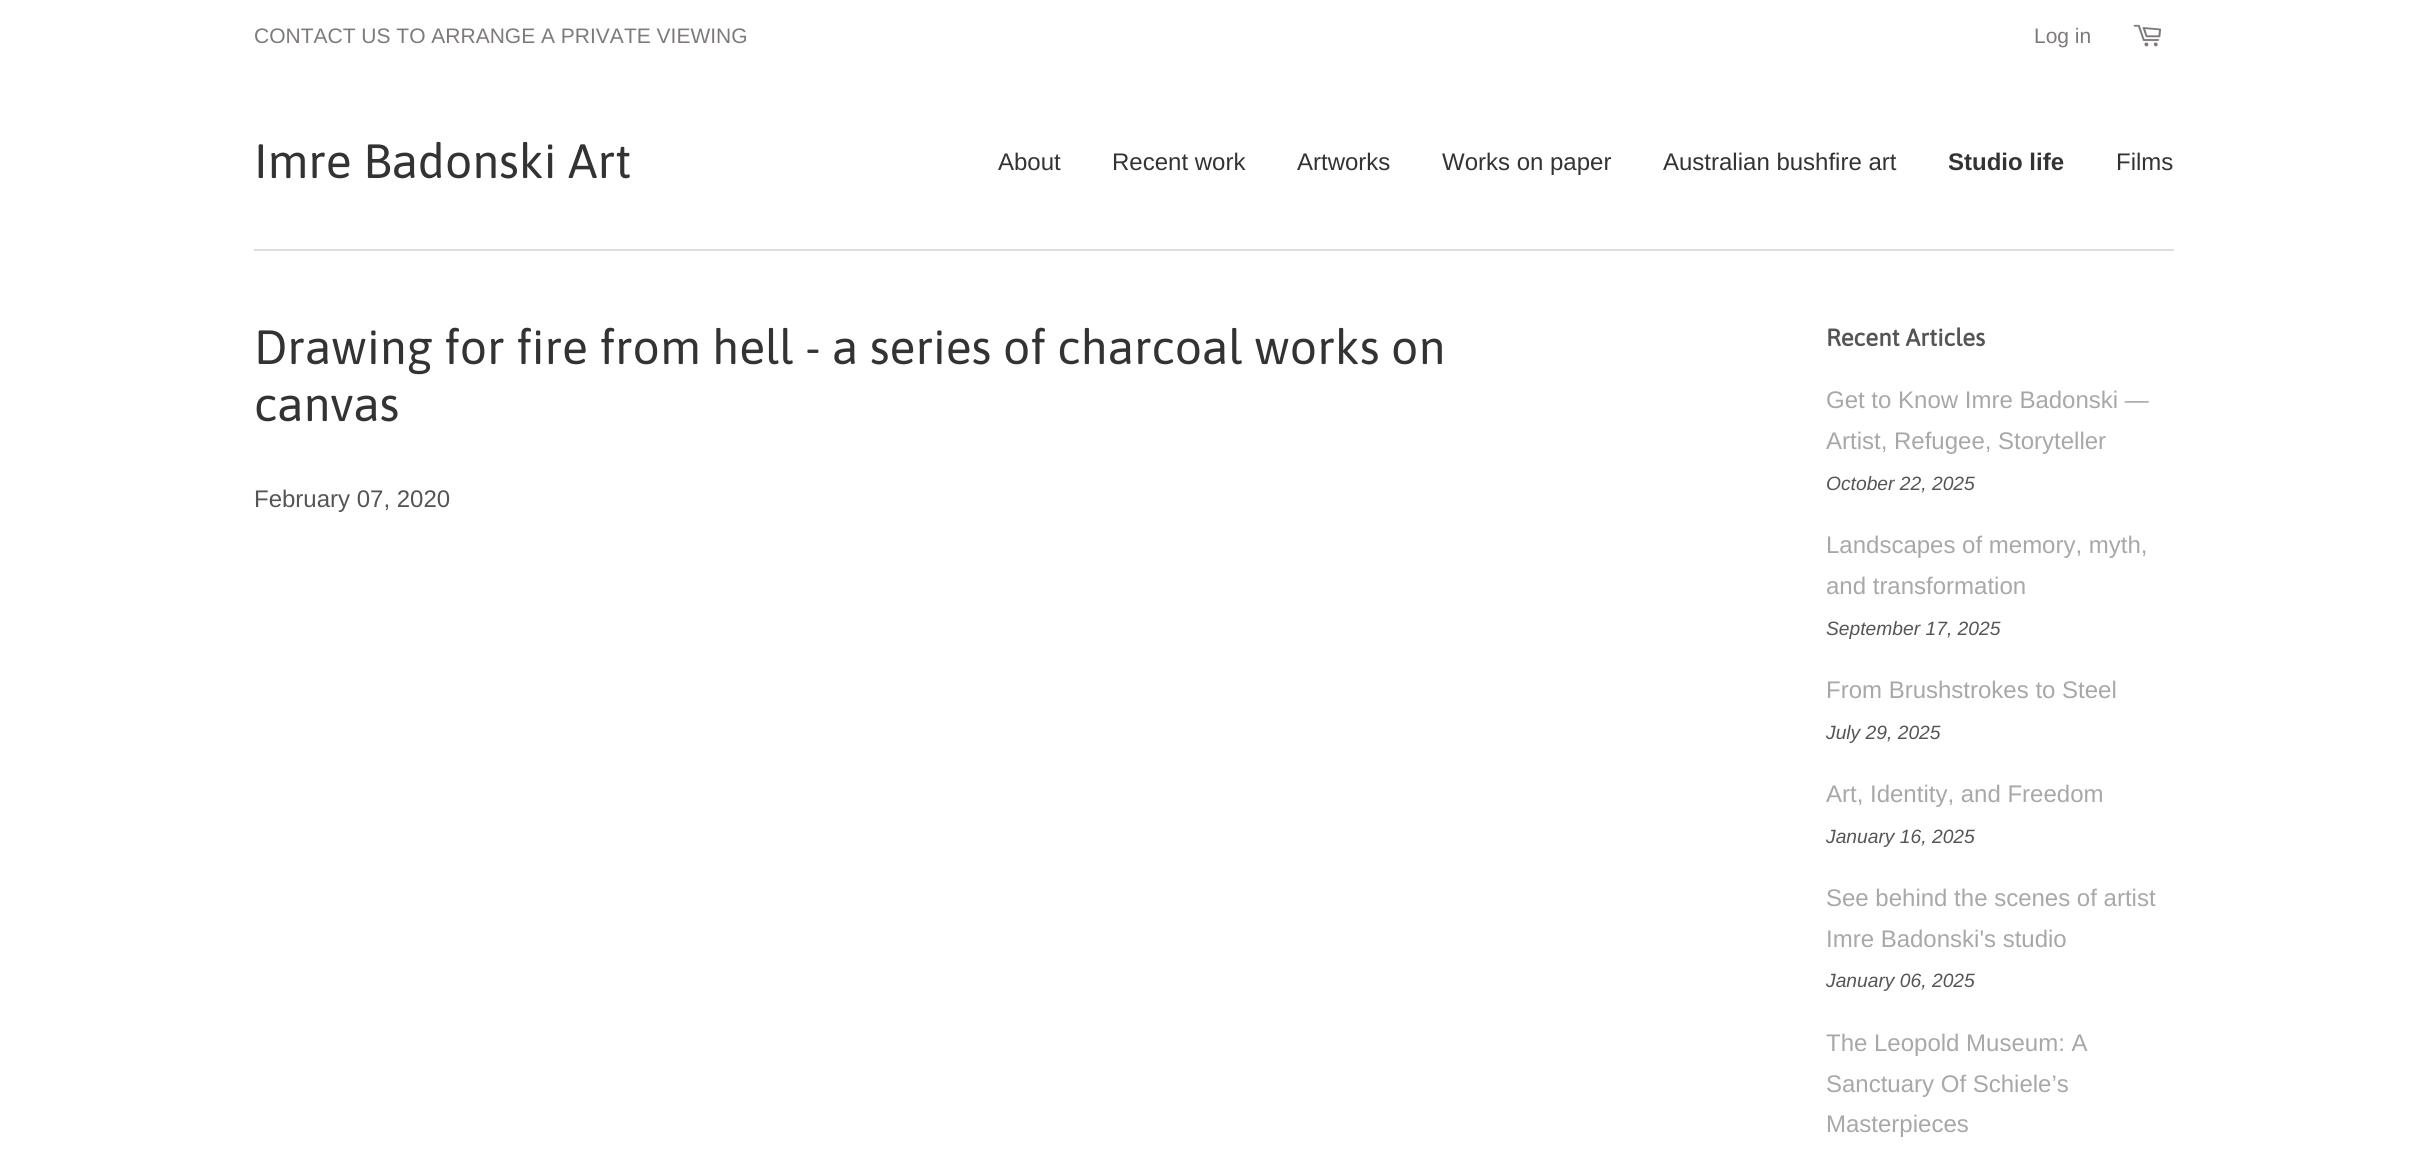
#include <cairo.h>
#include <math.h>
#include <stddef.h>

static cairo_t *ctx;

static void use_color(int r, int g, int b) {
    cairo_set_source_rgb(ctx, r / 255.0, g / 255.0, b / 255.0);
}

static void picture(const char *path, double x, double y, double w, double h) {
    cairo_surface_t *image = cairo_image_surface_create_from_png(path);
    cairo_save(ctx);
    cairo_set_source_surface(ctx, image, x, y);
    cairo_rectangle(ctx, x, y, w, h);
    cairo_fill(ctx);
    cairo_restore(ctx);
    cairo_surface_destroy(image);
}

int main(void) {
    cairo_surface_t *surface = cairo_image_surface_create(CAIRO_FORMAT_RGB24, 2427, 1157);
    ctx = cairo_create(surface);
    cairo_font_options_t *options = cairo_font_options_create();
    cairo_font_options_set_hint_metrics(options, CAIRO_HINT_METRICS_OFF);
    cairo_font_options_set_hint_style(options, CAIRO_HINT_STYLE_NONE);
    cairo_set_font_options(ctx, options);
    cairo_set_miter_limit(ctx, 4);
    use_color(255, 255, 255);
    cairo_paint(ctx);
    cairo_select_font_face(ctx, "Liberation Sans", CAIRO_FONT_SLANT_NORMAL, CAIRO_FONT_WEIGHT_NORMAL);
    cairo_set_font_size(ctx, 21);
    use_color(127, 122, 122);
    cairo_move_to(ctx, 254, 43);
    cairo_show_text(ctx, "CONTACT US TO ARRANGE A PRIVATE VIEWING");
    cairo_move_to(ctx, 2034, 43);
    cairo_show_text(ctx, "Log in");
    picture("img1.png", 2133, 24, 29, 23);
    use_color(221, 221, 221);
    cairo_rectangle(ctx, 254, 249, 1920, 2);
    cairo_fill(ctx);
    cairo_select_font_face(ctx, "Asap", CAIRO_FONT_SLANT_NORMAL, CAIRO_FONT_WEIGHT_NORMAL);
    cairo_set_font_size(ctx, 48);
    use_color(51, 51, 51);
    cairo_move_to(ctx, 254, 178);
    cairo_show_text(ctx, "Imre Badonski Art");
    cairo_select_font_face(ctx, "Liberation Sans", CAIRO_FONT_SLANT_NORMAL, CAIRO_FONT_WEIGHT_NORMAL);
    cairo_set_font_size(ctx, 24);
    cairo_move_to(ctx, 998, 170);
    cairo_show_text(ctx, "About");
    cairo_move_to(ctx, 1112, 170);
    cairo_show_text(ctx, "Recent work");
    cairo_move_to(ctx, 1297, 170);
    cairo_show_text(ctx, "Artworks");
    cairo_move_to(ctx, 1442, 170);
    cairo_show_text(ctx, "Works on paper");
    cairo_move_to(ctx, 1663, 170);
    cairo_show_text(ctx, "Australian bushfire art");
    cairo_select_font_face(ctx, "Liberation Sans", CAIRO_FONT_SLANT_NORMAL, CAIRO_FONT_WEIGHT_BOLD);
    cairo_move_to(ctx, 1948, 170);
    cairo_show_text(ctx, "Studio life");
    cairo_select_font_face(ctx, "Liberation Sans", CAIRO_FONT_SLANT_NORMAL, CAIRO_FONT_WEIGHT_NORMAL);
    cairo_move_to(ctx, 2116, 170);
    cairo_show_text(ctx, "Films");
    cairo_select_font_face(ctx, "Asap", CAIRO_FONT_SLANT_NORMAL, CAIRO_FONT_WEIGHT_NORMAL);
    cairo_set_font_size(ctx, 48);
    cairo_move_to(ctx, 254, 364);
    cairo_show_text(ctx, "Drawing for fire from hell - a series of charcoal works on");
    cairo_move_to(ctx, 254, 421);
    cairo_show_text(ctx, "canvas");
    cairo_select_font_face(ctx, "Liberation Sans", CAIRO_FONT_SLANT_NORMAL, CAIRO_FONT_WEIGHT_NORMAL);
    cairo_set_font_size(ctx, 24);
    use_color(85, 85, 85);
    cairo_move_to(ctx, 254, 507);
    cairo_show_text(ctx, "February 07, 2020");
    cairo_select_font_face(ctx, "Asap", CAIRO_FONT_SLANT_NORMAL, CAIRO_FONT_WEIGHT_BOLD);
    cairo_move_to(ctx, 1826, 346);
    cairo_show_text(ctx, "Recent Articles");
    cairo_select_font_face(ctx, "Liberation Sans", CAIRO_FONT_SLANT_NORMAL, CAIRO_FONT_WEIGHT_NORMAL);
    use_color(169, 167, 167);
    cairo_move_to(ctx, 1826, 408);
    cairo_show_text(ctx, "Get to Know Imre Badonski —");
    cairo_move_to(ctx, 1826, 449);
    cairo_show_text(ctx, "Artist, Refugee, Storyteller");
    cairo_select_font_face(ctx, "Liberation Sans", CAIRO_FONT_SLANT_ITALIC, CAIRO_FONT_WEIGHT_NORMAL);
    cairo_set_font_size(ctx, 19.25);
    use_color(85, 85, 85);
    cairo_move_to(ctx, 1826, 490);
    cairo_show_text(ctx, "October 22, 2025");
    cairo_select_font_face(ctx, "Liberation Sans", CAIRO_FONT_SLANT_NORMAL, CAIRO_FONT_WEIGHT_NORMAL);
    cairo_set_font_size(ctx, 24);
    use_color(169, 167, 167);
    cairo_move_to(ctx, 1826, 553);
    cairo_show_text(ctx, "Landscapes of memory, myth,");
    cairo_move_to(ctx, 1826, 594);
    cairo_show_text(ctx, "and transformation");
    cairo_select_font_face(ctx, "Liberation Sans", CAIRO_FONT_SLANT_ITALIC, CAIRO_FONT_WEIGHT_NORMAL);
    cairo_set_font_size(ctx, 19.25);
    use_color(85, 85, 85);
    cairo_move_to(ctx, 1826, 635);
    cairo_show_text(ctx, "September 17, 2025");
    cairo_select_font_face(ctx, "Liberation Sans", CAIRO_FONT_SLANT_NORMAL, CAIRO_FONT_WEIGHT_NORMAL);
    cairo_set_font_size(ctx, 24);
    use_color(169, 167, 167);
    cairo_move_to(ctx, 1826, 698);
    cairo_show_text(ctx, "From Brushstrokes to Steel");
    cairo_select_font_face(ctx, "Liberation Sans", CAIRO_FONT_SLANT_ITALIC, CAIRO_FONT_WEIGHT_NORMAL);
    cairo_set_font_size(ctx, 19.25);
    use_color(85, 85, 85);
    cairo_move_to(ctx, 1826, 739);
    cairo_show_text(ctx, "July 29, 2025");
    cairo_select_font_face(ctx, "Liberation Sans", CAIRO_FONT_SLANT_NORMAL, CAIRO_FONT_WEIGHT_NORMAL);
    cairo_set_font_size(ctx, 24);
    use_color(169, 167, 167);
    cairo_move_to(ctx, 1826, 802);
    cairo_show_text(ctx, "Art, Identity, and Freedom");
    cairo_select_font_face(ctx, "Liberation Sans", CAIRO_FONT_SLANT_ITALIC, CAIRO_FONT_WEIGHT_NORMAL);
    cairo_set_font_size(ctx, 19.25);
    use_color(85, 85, 85);
    cairo_move_to(ctx, 1826, 843);
    cairo_show_text(ctx, "January 16, 2025");
    cairo_select_font_face(ctx, "Liberation Sans", CAIRO_FONT_SLANT_NORMAL, CAIRO_FONT_WEIGHT_NORMAL);
    cairo_set_font_size(ctx, 24);
    use_color(169, 167, 167);
    cairo_move_to(ctx, 1826, 906);
    cairo_show_text(ctx, "See behind the scenes of artist");
    cairo_move_to(ctx, 1826, 947);
    cairo_show_text(ctx, "Imre Badonski's studio");
    cairo_select_font_face(ctx, "Liberation Sans", CAIRO_FONT_SLANT_ITALIC, CAIRO_FONT_WEIGHT_NORMAL);
    cairo_set_font_size(ctx, 19.25);
    use_color(85, 85, 85);
    cairo_move_to(ctx, 1826, 987);
    cairo_show_text(ctx, "January 06, 2025");
    cairo_select_font_face(ctx, "Liberation Sans", CAIRO_FONT_SLANT_NORMAL, CAIRO_FONT_WEIGHT_NORMAL);
    cairo_set_font_size(ctx, 24);
    use_color(169, 167, 167);
    cairo_move_to(ctx, 1826, 1051);
    cairo_show_text(ctx, "The Leopold Museum: A");
    cairo_move_to(ctx, 1826, 1092);
    cairo_show_text(ctx, "Sanctuary Of Schiele’s");
    cairo_move_to(ctx, 1826, 1132);
    cairo_show_text(ctx, "Masterpieces");
    cairo_surface_write_to_png(surface, "result.png");
    cairo_font_options_destroy(options);
    cairo_destroy(ctx);
    cairo_surface_destroy(surface);
    return 0;
}
